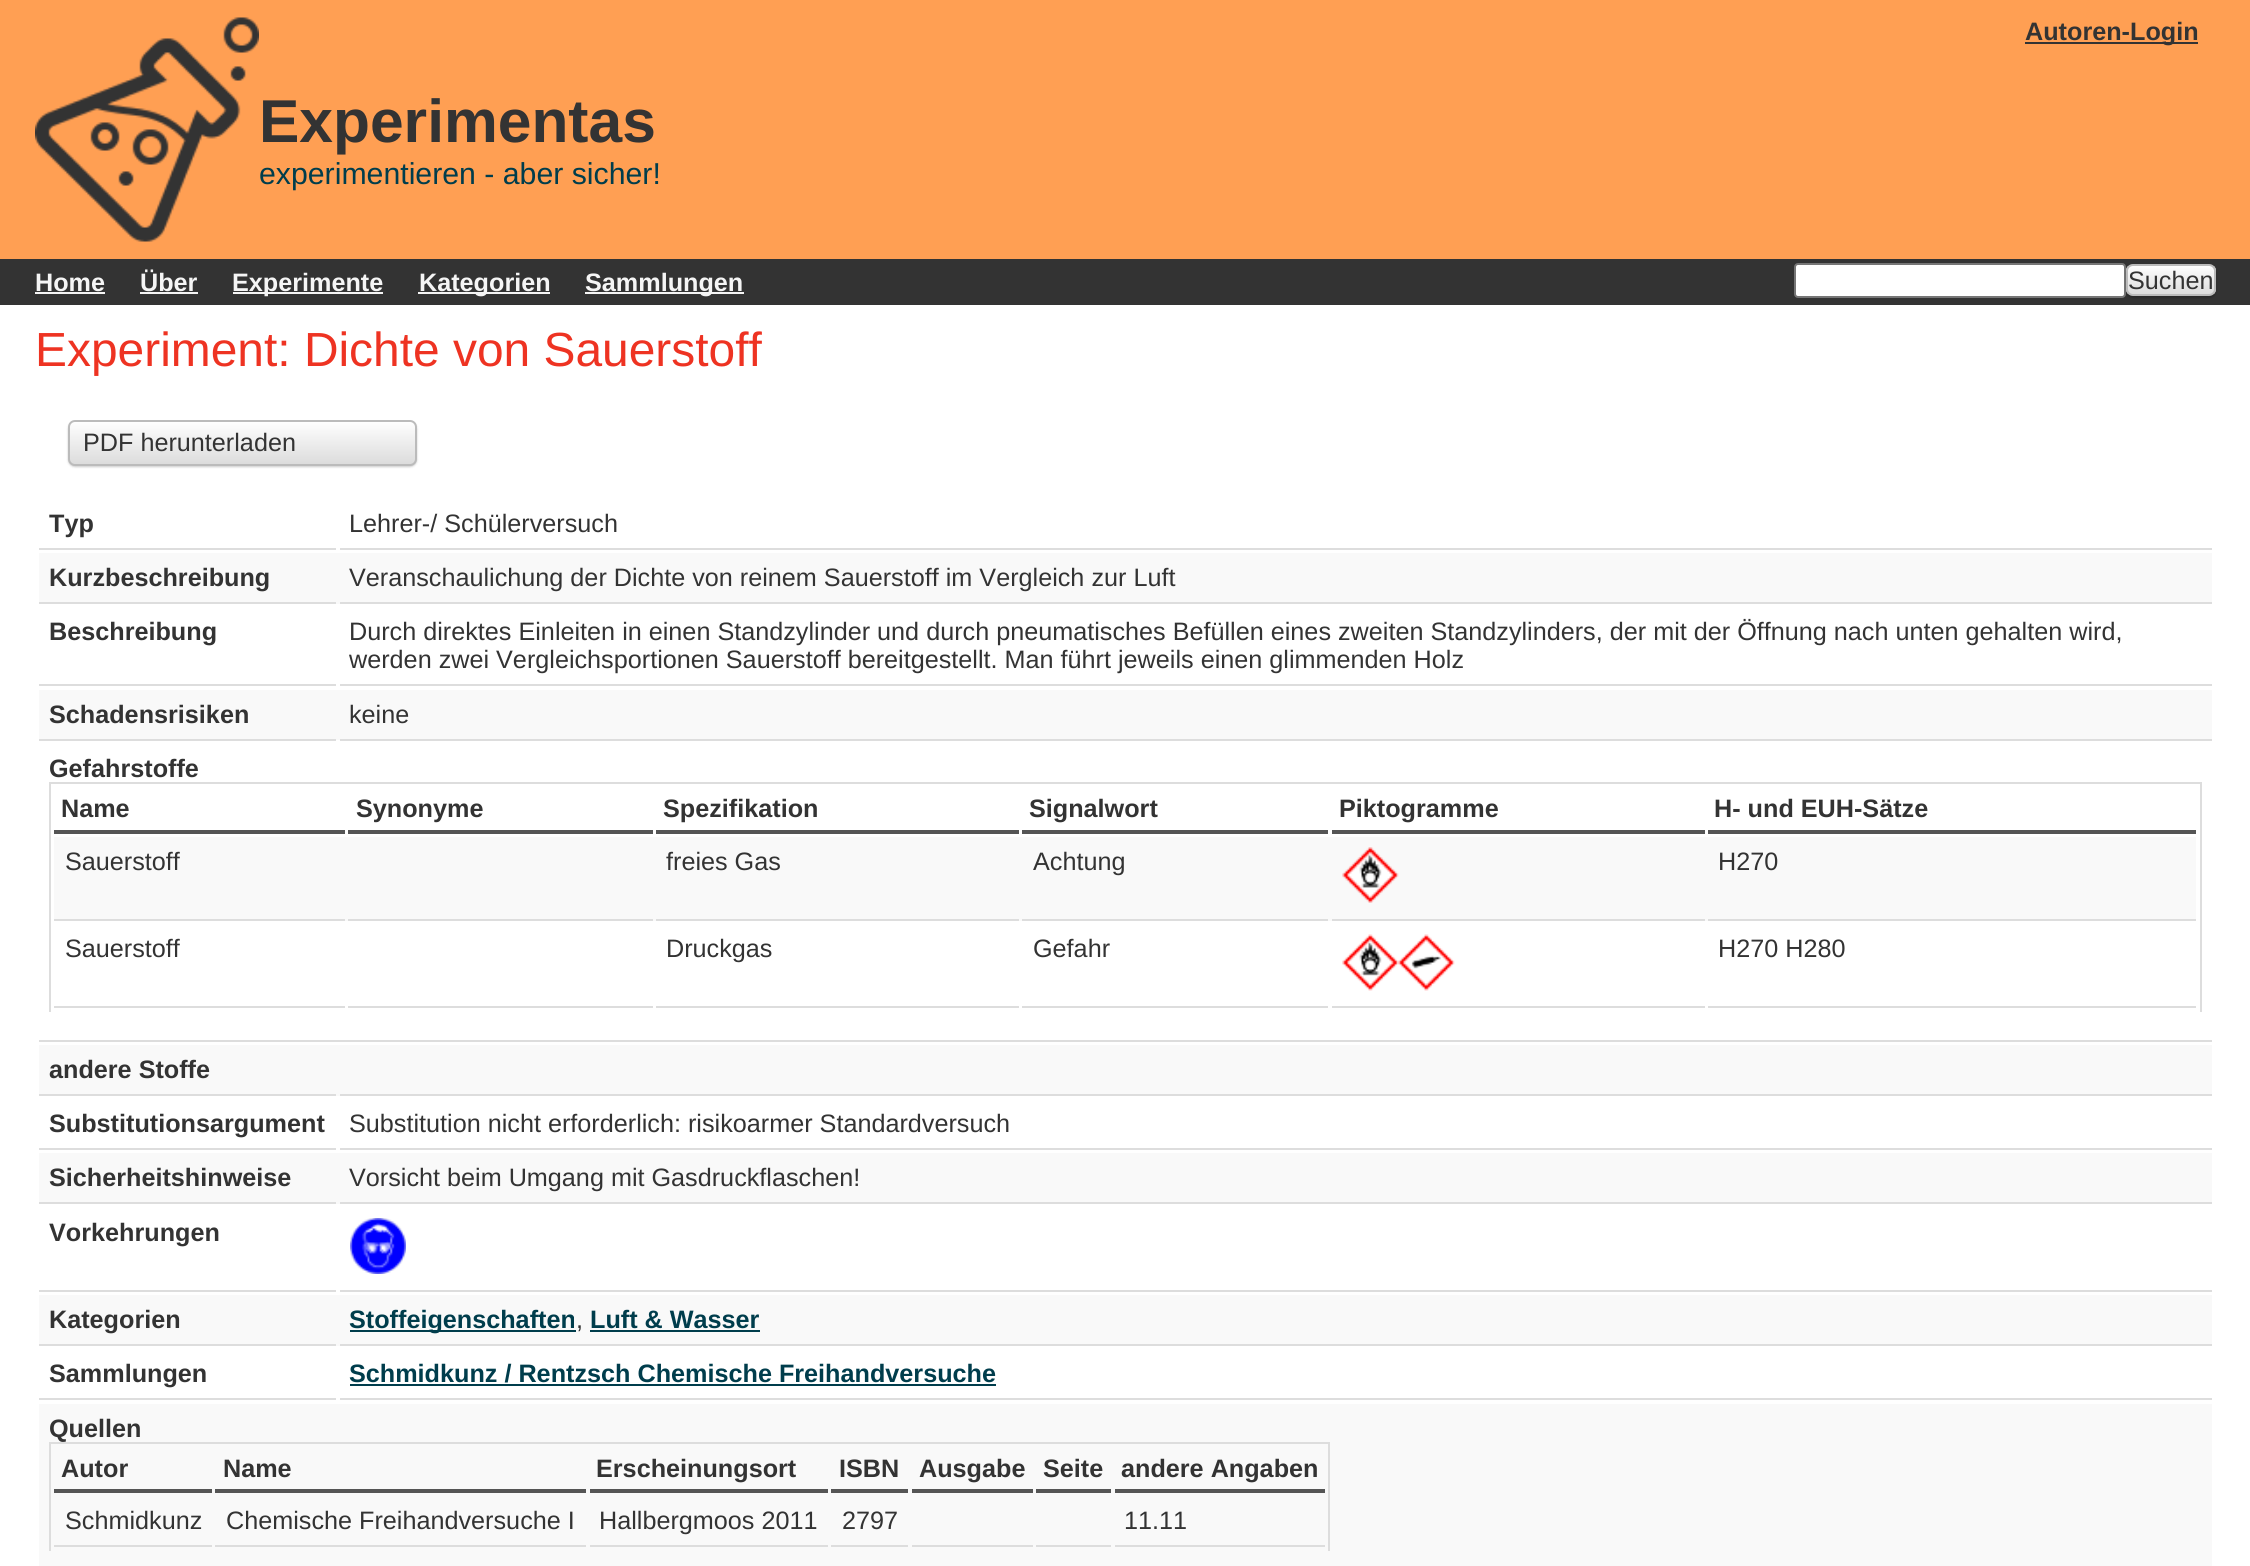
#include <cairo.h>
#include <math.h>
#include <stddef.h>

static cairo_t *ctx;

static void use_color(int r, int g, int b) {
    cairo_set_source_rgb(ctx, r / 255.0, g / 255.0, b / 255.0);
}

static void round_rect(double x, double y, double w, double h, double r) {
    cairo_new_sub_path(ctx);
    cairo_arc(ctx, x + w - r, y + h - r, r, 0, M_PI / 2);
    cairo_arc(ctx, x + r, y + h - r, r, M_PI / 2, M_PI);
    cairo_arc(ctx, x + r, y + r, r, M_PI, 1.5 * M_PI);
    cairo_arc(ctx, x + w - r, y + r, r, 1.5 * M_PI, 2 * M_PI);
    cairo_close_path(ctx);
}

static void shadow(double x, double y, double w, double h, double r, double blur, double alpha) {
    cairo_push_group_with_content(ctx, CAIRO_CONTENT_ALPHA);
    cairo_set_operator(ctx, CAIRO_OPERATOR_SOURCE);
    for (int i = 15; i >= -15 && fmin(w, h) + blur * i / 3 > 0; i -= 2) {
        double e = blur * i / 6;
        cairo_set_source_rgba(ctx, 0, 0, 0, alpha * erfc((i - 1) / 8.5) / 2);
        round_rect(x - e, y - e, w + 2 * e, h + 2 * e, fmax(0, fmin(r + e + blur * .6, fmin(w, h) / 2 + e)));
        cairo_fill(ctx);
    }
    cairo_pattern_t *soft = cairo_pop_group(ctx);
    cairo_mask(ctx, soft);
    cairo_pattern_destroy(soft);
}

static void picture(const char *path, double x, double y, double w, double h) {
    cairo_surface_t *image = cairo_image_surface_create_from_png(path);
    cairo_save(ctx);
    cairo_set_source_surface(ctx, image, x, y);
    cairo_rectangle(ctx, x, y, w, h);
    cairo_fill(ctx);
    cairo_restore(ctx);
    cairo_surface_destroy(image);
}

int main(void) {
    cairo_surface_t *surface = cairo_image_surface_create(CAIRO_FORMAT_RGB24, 2250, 1566);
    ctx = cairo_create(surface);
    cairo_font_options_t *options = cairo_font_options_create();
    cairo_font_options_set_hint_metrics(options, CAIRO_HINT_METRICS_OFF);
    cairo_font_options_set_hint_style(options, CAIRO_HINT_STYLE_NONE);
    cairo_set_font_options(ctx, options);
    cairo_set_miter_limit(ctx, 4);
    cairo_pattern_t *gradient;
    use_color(255, 159, 83);
    cairo_paint(ctx);
    picture("img1.png", 35, 17, 224, 225);
    use_color(51, 51, 51);
    cairo_rectangle(ctx, 2025, 42, 173, 2);
    cairo_fill(ctx);
    cairo_select_font_face(ctx, "Liberation Sans", CAIRO_FONT_SLANT_NORMAL, CAIRO_FONT_WEIGHT_BOLD);
    cairo_set_font_size(ctx, 25.2);
    cairo_move_to(ctx, 2025, 40);
    cairo_show_text(ctx, "Autoren-Login");
    cairo_set_font_size(ctx, 60.5);
    cairo_move_to(ctx, 259, 142);
    cairo_show_text(ctx, "Experimentas");
    cairo_select_font_face(ctx, "Liberation Sans", CAIRO_FONT_SLANT_NORMAL, CAIRO_FONT_WEIGHT_NORMAL);
    cairo_set_font_size(ctx, 30.25);
    use_color(0, 61, 76);
    cairo_move_to(ctx, 259, 184);
    cairo_show_text(ctx, "experimentieren - aber sicher!");
    use_color(51, 51, 51);
    cairo_rectangle(ctx, 0, 259, 2250, 46);
    cairo_fill(ctx);
    cairo_select_font_face(ctx, "Liberation Sans", CAIRO_FONT_SLANT_NORMAL, CAIRO_FONT_WEIGHT_BOLD);
    cairo_set_font_size(ctx, 25.2);
    use_color(245, 245, 245);
    cairo_move_to(ctx, 35, 291);
    cairo_show_text(ctx, "Home");
    cairo_rectangle(ctx, 35, 292, 70, 2);
    cairo_fill(ctx);
    cairo_move_to(ctx, 140, 291);
    cairo_show_text(ctx, "Über");
    cairo_rectangle(ctx, 140, 292, 58, 2);
    cairo_fill(ctx);
    cairo_rectangle(ctx, 233, 292, 150, 2);
    cairo_fill(ctx);
    cairo_move_to(ctx, 232, 291);
    cairo_show_text(ctx, "Experimente");
    cairo_rectangle(ctx, 418, 292, 132, 2);
    cairo_fill(ctx);
    cairo_move_to(ctx, 419, 291);
    cairo_show_text(ctx, "Kategorien");
    cairo_rectangle(ctx, 585, 292, 159, 2);
    cairo_fill(ctx);
    cairo_move_to(ctx, 585, 291);
    cairo_show_text(ctx, "Sammlungen");
    use_color(255, 255, 255);
    round_rect(1795, 264, 330, 33, 3);
    cairo_fill_preserve(ctx);
    use_color(118, 118, 118);
    cairo_stroke(ctx);
    use_color(0, 0, 0);
    shadow(2126, 266, 90, 32, 7, 1, 0.2);
    cairo_save(ctx);
    round_rect(2126, 264, 90, 32, 7);
    cairo_clip(ctx);
    gradient = cairo_pattern_create_linear(2171, 266, 2171, 294);
    cairo_pattern_add_color_stop_rgba(gradient, 0, 0.996, 0.996, 0.996, 1);
    cairo_pattern_add_color_stop_rgba(gradient, 1, 0.863, 0.863, 0.863, 1);
    cairo_set_source(ctx, gradient);
    cairo_pattern_destroy(gradient);
    cairo_rectangle(ctx, 2126, 266, 90, 28);
    cairo_fill(ctx);
    cairo_restore(ctx);
    cairo_set_source_rgba(ctx, 1, 1, 1, 0.3);
    cairo_new_path(ctx);
    cairo_move_to(ctx, 2133, 268);
    cairo_line_to(ctx, 2208, 268);
    cairo_curve_to(ctx, 2211, 268, 2214, 270, 2214, 273);
    cairo_curve_to(ctx, 2214, 263, 2205, 266, 2196, 266);
    cairo_line_to(ctx, 2146, 266);
    cairo_curve_to(ctx, 2137, 266, 2128, 263, 2128, 273);
    cairo_curve_to(ctx, 2128, 270, 2130, 268, 2133, 268);
    cairo_close_path(ctx);
    cairo_fill(ctx);
    round_rect(2127, 265, 88, 30, 6);
    use_color(187, 187, 187);
    cairo_stroke(ctx);
    cairo_select_font_face(ctx, "Liberation Sans", CAIRO_FONT_SLANT_NORMAL, CAIRO_FONT_WEIGHT_NORMAL);
    use_color(51, 51, 51);
    cairo_move_to(ctx, 2128, 289);
    cairo_show_text(ctx, "Suchen");
    use_color(255, 255, 255);
    cairo_rectangle(ctx, 0, 305, 2250, 1261);
    cairo_fill(ctx);
    cairo_set_font_size(ctx, 47.9);
    use_color(238, 51, 34);
    cairo_move_to(ctx, 35, 366);
    cairo_show_text(ctx, "Experiment: Dichte von Sauerstoff");
    use_color(0, 0, 0);
    shadow(68, 422, 349, 45, 7, 1, 0.2);
    cairo_save(ctx);
    round_rect(68, 420, 349, 46, 7);
    cairo_clip(ctx);
    gradient = cairo_pattern_create_linear(242, 422, 242, 464);
    cairo_pattern_add_color_stop_rgba(gradient, 0, 0.996, 0.996, 0.996, 1);
    cairo_pattern_add_color_stop_rgba(gradient, 1, 0.863, 0.863, 0.863, 1);
    cairo_set_source(ctx, gradient);
    cairo_pattern_destroy(gradient);
    cairo_rectangle(ctx, 68, 422, 349, 42);
    cairo_fill(ctx);
    cairo_restore(ctx);
    round_rect(69, 421, 347, 44, 6);
    use_color(187, 187, 187);
    cairo_stroke(ctx);
    cairo_set_font_size(ctx, 25.2);
    use_color(51, 51, 51);
    cairo_move_to(ctx, 83, 451);
    cairo_show_text(ctx, "PDF herunterladen");
    use_color(221, 221, 221);
    cairo_rectangle(ctx, 39, 548, 297, 2);
    cairo_fill(ctx);
    cairo_select_font_face(ctx, "Liberation Sans", CAIRO_FONT_SLANT_NORMAL, CAIRO_FONT_WEIGHT_BOLD);
    use_color(51, 51, 51);
    cairo_move_to(ctx, 49, 532);
    cairo_show_text(ctx, "Typ");
    use_color(221, 221, 221);
    cairo_rectangle(ctx, 340, 548, 1872, 2);
    cairo_fill(ctx);
    cairo_select_font_face(ctx, "Liberation Sans", CAIRO_FONT_SLANT_NORMAL, CAIRO_FONT_WEIGHT_NORMAL);
    use_color(51, 51, 51);
    cairo_move_to(ctx, 349, 532);
    cairo_show_text(ctx, "Lehrer-/ Schülerversuch");
    use_color(249, 249, 249);
    cairo_rectangle(ctx, 39, 553, 2173, 51);
    cairo_fill(ctx);
    use_color(221, 221, 221);
    cairo_rectangle(ctx, 39, 602, 297, 2);
    cairo_fill(ctx);
    cairo_select_font_face(ctx, "Liberation Sans", CAIRO_FONT_SLANT_NORMAL, CAIRO_FONT_WEIGHT_BOLD);
    use_color(51, 51, 51);
    cairo_move_to(ctx, 49, 586);
    cairo_show_text(ctx, "Kurzbeschreibung");
    use_color(221, 221, 221);
    cairo_rectangle(ctx, 340, 602, 1872, 2);
    cairo_fill(ctx);
    cairo_select_font_face(ctx, "Liberation Sans", CAIRO_FONT_SLANT_NORMAL, CAIRO_FONT_WEIGHT_NORMAL);
    use_color(51, 51, 51);
    cairo_move_to(ctx, 349, 586);
    cairo_show_text(ctx, "Veranschaulichung der Dichte von reinem Sauerstoff im Vergleich zur Luft");
    use_color(221, 221, 221);
    cairo_rectangle(ctx, 39, 684, 297, 2);
    cairo_fill(ctx);
    cairo_select_font_face(ctx, "Liberation Sans", CAIRO_FONT_SLANT_NORMAL, CAIRO_FONT_WEIGHT_BOLD);
    use_color(51, 51, 51);
    cairo_move_to(ctx, 49, 640);
    cairo_show_text(ctx, "Beschreibung");
    use_color(221, 221, 221);
    cairo_rectangle(ctx, 340, 684, 1872, 2);
    cairo_fill(ctx);
    cairo_select_font_face(ctx, "Liberation Sans", CAIRO_FONT_SLANT_NORMAL, CAIRO_FONT_WEIGHT_NORMAL);
    use_color(51, 51, 51);
    cairo_move_to(ctx, 349, 640);
    cairo_show_text(ctx, "Durch direktes Einleiten in einen Standzylinder und durch pneumatisches Befüllen eines zweiten Standzylinders, der mit der Öffnung nach unten gehalten wird,");
    cairo_move_to(ctx, 349, 668);
    cairo_show_text(ctx, "werden zwei Vergleichsportionen Sauerstoff bereitgestellt. Man führt jeweils einen glimmenden Holz");
    use_color(249, 249, 249);
    cairo_rectangle(ctx, 39, 690, 2173, 50);
    cairo_fill(ctx);
    use_color(221, 221, 221);
    cairo_rectangle(ctx, 39, 739, 297, 2);
    cairo_fill(ctx);
    cairo_select_font_face(ctx, "Liberation Sans", CAIRO_FONT_SLANT_NORMAL, CAIRO_FONT_WEIGHT_BOLD);
    use_color(51, 51, 51);
    cairo_move_to(ctx, 49, 723);
    cairo_show_text(ctx, "Schadensrisiken");
    use_color(221, 221, 221);
    cairo_rectangle(ctx, 340, 739, 1872, 2);
    cairo_fill(ctx);
    cairo_select_font_face(ctx, "Liberation Sans", CAIRO_FONT_SLANT_NORMAL, CAIRO_FONT_WEIGHT_NORMAL);
    use_color(51, 51, 51);
    cairo_move_to(ctx, 349, 723);
    cairo_show_text(ctx, "keine");
    use_color(221, 221, 221);
    cairo_rectangle(ctx, 39, 1040, 2173, 2);
    cairo_fill(ctx);
    cairo_select_font_face(ctx, "Liberation Sans", CAIRO_FONT_SLANT_NORMAL, CAIRO_FONT_WEIGHT_BOLD);
    use_color(51, 51, 51);
    cairo_move_to(ctx, 49, 777);
    cairo_show_text(ctx, "Gefahrstoffe");
    use_color(221, 221, 221);
    cairo_rectangle(ctx, 49, 782, 2153, 2);
    cairo_fill(ctx);
    cairo_rectangle(ctx, 2200, 782, 2, 230);
    cairo_fill(ctx);
    cairo_rectangle(ctx, 49, 782, 2, 230);
    cairo_fill(ctx);
    use_color(85, 85, 85);
    cairo_rectangle(ctx, 54, 830, 291, 4);
    cairo_fill(ctx);
    use_color(51, 51, 51);
    cairo_move_to(ctx, 61, 817);
    cairo_show_text(ctx, "Name");
    use_color(85, 85, 85);
    cairo_rectangle(ctx, 348, 830, 305, 4);
    cairo_fill(ctx);
    use_color(51, 51, 51);
    cairo_move_to(ctx, 356, 817);
    cairo_show_text(ctx, "Synonyme");
    use_color(85, 85, 85);
    cairo_rectangle(ctx, 656, 830, 363, 4);
    cairo_fill(ctx);
    use_color(51, 51, 51);
    cairo_move_to(ctx, 663, 817);
    cairo_show_text(ctx, "Spezifikation");
    use_color(85, 85, 85);
    cairo_rectangle(ctx, 1022, 830, 306, 4);
    cairo_fill(ctx);
    use_color(51, 51, 51);
    cairo_move_to(ctx, 1029, 817);
    cairo_show_text(ctx, "Signalwort");
    use_color(85, 85, 85);
    cairo_rectangle(ctx, 1332, 830, 373, 4);
    cairo_fill(ctx);
    use_color(51, 51, 51);
    cairo_move_to(ctx, 1339, 817);
    cairo_show_text(ctx, "Piktogramme");
    use_color(85, 85, 85);
    cairo_rectangle(ctx, 1708, 830, 488, 4);
    cairo_fill(ctx);
    use_color(51, 51, 51);
    cairo_move_to(ctx, 1714, 817);
    cairo_show_text(ctx, "H- und EUH-Sätze");
    use_color(249, 249, 249);
    cairo_rectangle(ctx, 54, 837, 2142, 84);
    cairo_fill(ctx);
    use_color(221, 221, 221);
    cairo_rectangle(ctx, 54, 919, 291, 2);
    cairo_fill(ctx);
    cairo_select_font_face(ctx, "Liberation Sans", CAIRO_FONT_SLANT_NORMAL, CAIRO_FONT_WEIGHT_NORMAL);
    use_color(51, 51, 51);
    cairo_move_to(ctx, 65, 870);
    cairo_show_text(ctx, "Sauerstoff");
    use_color(221, 221, 221);
    cairo_rectangle(ctx, 656, 919, 363, 2);
    cairo_fill(ctx);
    use_color(51, 51, 51);
    cairo_move_to(ctx, 666, 870);
    cairo_show_text(ctx, "freies Gas");
    use_color(221, 221, 221);
    cairo_rectangle(ctx, 1022, 919, 306, 2);
    cairo_fill(ctx);
    use_color(51, 51, 51);
    cairo_move_to(ctx, 1033, 870);
    cairo_show_text(ctx, "Achtung");
    use_color(221, 221, 221);
    cairo_rectangle(ctx, 1332, 919, 373, 2);
    cairo_fill(ctx);
    picture("img2.png", 1342, 847, 57, 56);
    cairo_rectangle(ctx, 1708, 919, 488, 2);
    cairo_fill(ctx);
    use_color(51, 51, 51);
    cairo_move_to(ctx, 1718, 870);
    cairo_show_text(ctx, "H270");
    use_color(221, 221, 221);
    cairo_rectangle(ctx, 348, 919, 305, 2);
    cairo_fill(ctx);
    cairo_rectangle(ctx, 54, 1006, 291, 2);
    cairo_fill(ctx);
    use_color(51, 51, 51);
    cairo_move_to(ctx, 65, 957);
    cairo_show_text(ctx, "Sauerstoff");
    use_color(221, 221, 221);
    cairo_rectangle(ctx, 656, 1006, 363, 2);
    cairo_fill(ctx);
    use_color(51, 51, 51);
    cairo_move_to(ctx, 666, 957);
    cairo_show_text(ctx, "Druckgas");
    use_color(221, 221, 221);
    cairo_rectangle(ctx, 1022, 1006, 306, 2);
    cairo_fill(ctx);
    use_color(51, 51, 51);
    cairo_move_to(ctx, 1033, 957);
    cairo_show_text(ctx, "Gefahr");
    use_color(221, 221, 221);
    cairo_rectangle(ctx, 1332, 1006, 373, 2);
    cairo_fill(ctx);
    picture("img3.png", 1342, 934, 57, 57);
    picture("img4.png", 1398, 934, 57, 57);
    cairo_rectangle(ctx, 1708, 1006, 488, 2);
    cairo_fill(ctx);
    use_color(51, 51, 51);
    cairo_move_to(ctx, 1718, 957);
    cairo_show_text(ctx, "H270 H280");
    use_color(221, 221, 221);
    cairo_rectangle(ctx, 348, 1006, 305, 2);
    cairo_fill(ctx);
    use_color(249, 249, 249);
    cairo_rectangle(ctx, 39, 1045, 2173, 51);
    cairo_fill(ctx);
    use_color(221, 221, 221);
    cairo_rectangle(ctx, 39, 1094, 297, 2);
    cairo_fill(ctx);
    cairo_select_font_face(ctx, "Liberation Sans", CAIRO_FONT_SLANT_NORMAL, CAIRO_FONT_WEIGHT_BOLD);
    use_color(51, 51, 51);
    cairo_move_to(ctx, 49, 1078);
    cairo_show_text(ctx, "andere Stoffe");
    use_color(221, 221, 221);
    cairo_rectangle(ctx, 340, 1094, 1872, 2);
    cairo_fill(ctx);
    cairo_rectangle(ctx, 39, 1148, 297, 2);
    cairo_fill(ctx);
    use_color(51, 51, 51);
    cairo_move_to(ctx, 49, 1132);
    cairo_show_text(ctx, "Substitutionsargument");
    use_color(221, 221, 221);
    cairo_rectangle(ctx, 340, 1148, 1872, 2);
    cairo_fill(ctx);
    cairo_select_font_face(ctx, "Liberation Sans", CAIRO_FONT_SLANT_NORMAL, CAIRO_FONT_WEIGHT_NORMAL);
    use_color(51, 51, 51);
    cairo_move_to(ctx, 349, 1132);
    cairo_show_text(ctx, "Substitution nicht erforderlich: risikoarmer Standardversuch");
    use_color(249, 249, 249);
    cairo_rectangle(ctx, 39, 1153, 2173, 51);
    cairo_fill(ctx);
    use_color(221, 221, 221);
    cairo_rectangle(ctx, 39, 1202, 297, 2);
    cairo_fill(ctx);
    cairo_select_font_face(ctx, "Liberation Sans", CAIRO_FONT_SLANT_NORMAL, CAIRO_FONT_WEIGHT_BOLD);
    use_color(51, 51, 51);
    cairo_move_to(ctx, 49, 1186);
    cairo_show_text(ctx, "Sicherheitshinweise");
    use_color(221, 221, 221);
    cairo_rectangle(ctx, 340, 1202, 1872, 2);
    cairo_fill(ctx);
    cairo_select_font_face(ctx, "Liberation Sans", CAIRO_FONT_SLANT_NORMAL, CAIRO_FONT_WEIGHT_NORMAL);
    use_color(51, 51, 51);
    cairo_move_to(ctx, 349, 1186);
    cairo_show_text(ctx, "Vorsicht beim Umgang mit Gasdruckflaschen!");
    use_color(221, 221, 221);
    cairo_rectangle(ctx, 39, 1290, 297, 2);
    cairo_fill(ctx);
    cairo_select_font_face(ctx, "Liberation Sans", CAIRO_FONT_SLANT_NORMAL, CAIRO_FONT_WEIGHT_BOLD);
    use_color(51, 51, 51);
    cairo_move_to(ctx, 49, 1241);
    cairo_show_text(ctx, "Vorkehrungen");
    use_color(221, 221, 221);
    cairo_rectangle(ctx, 340, 1290, 1872, 2);
    cairo_fill(ctx);
    picture("img5.png", 350, 1218, 56, 56);
    use_color(249, 249, 249);
    cairo_rectangle(ctx, 39, 1295, 2173, 51);
    cairo_fill(ctx);
    use_color(221, 221, 221);
    cairo_rectangle(ctx, 39, 1344, 297, 2);
    cairo_fill(ctx);
    use_color(51, 51, 51);
    cairo_move_to(ctx, 49, 1328);
    cairo_show_text(ctx, "Kategorien");
    use_color(221, 221, 221);
    cairo_rectangle(ctx, 340, 1344, 1872, 2);
    cairo_fill(ctx);
    use_color(0, 61, 76);
    cairo_rectangle(ctx, 350, 1330, 226, 2);
    cairo_fill(ctx);
    cairo_move_to(ctx, 349, 1328);
    cairo_show_text(ctx, "Stoffeigenschaften");
    cairo_select_font_face(ctx, "Liberation Sans", CAIRO_FONT_SLANT_NORMAL, CAIRO_FONT_WEIGHT_NORMAL);
    use_color(51, 51, 51);
    cairo_move_to(ctx, 576, 1328);
    cairo_show_text(ctx, ",");
    cairo_select_font_face(ctx, "Liberation Sans", CAIRO_FONT_SLANT_NORMAL, CAIRO_FONT_WEIGHT_BOLD);
    use_color(0, 61, 76);
    cairo_move_to(ctx, 590, 1328);
    cairo_show_text(ctx, "Luft & Wasser");
    cairo_rectangle(ctx, 590, 1330, 170, 2);
    cairo_fill(ctx);
    use_color(221, 221, 221);
    cairo_rectangle(ctx, 39, 1398, 297, 2);
    cairo_fill(ctx);
    use_color(51, 51, 51);
    cairo_move_to(ctx, 49, 1382);
    cairo_show_text(ctx, "Sammlungen");
    use_color(221, 221, 221);
    cairo_rectangle(ctx, 340, 1398, 1872, 2);
    cairo_fill(ctx);
    use_color(0, 61, 76);
    cairo_move_to(ctx, 349, 1382);
    cairo_show_text(ctx, "Schmidkunz / Rentzsch Chemische Freihandversuche");
    cairo_rectangle(ctx, 350, 1384, 646, 2);
    cairo_fill(ctx);
    use_color(249, 249, 249);
    cairo_rectangle(ctx, 39, 1404, 2173, 162);
    cairo_fill(ctx);
    use_color(51, 51, 51);
    cairo_move_to(ctx, 49, 1437);
    cairo_show_text(ctx, "Quellen");
    use_color(221, 221, 221);
    cairo_rectangle(ctx, 49, 1442, 1281, 2);
    cairo_fill(ctx);
    cairo_rectangle(ctx, 1328, 1442, 2, 109);
    cairo_fill(ctx);
    cairo_rectangle(ctx, 49, 1442, 2, 109);
    cairo_fill(ctx);
    use_color(85, 85, 85);
    cairo_rectangle(ctx, 54, 1489, 158, 4);
    cairo_fill(ctx);
    use_color(51, 51, 51);
    cairo_move_to(ctx, 61, 1477);
    cairo_show_text(ctx, "Autor");
    use_color(85, 85, 85);
    cairo_rectangle(ctx, 215, 1489, 371, 4);
    cairo_fill(ctx);
    use_color(51, 51, 51);
    cairo_move_to(ctx, 223, 1477);
    cairo_show_text(ctx, "Name");
    use_color(85, 85, 85);
    cairo_rectangle(ctx, 590, 1489, 238, 4);
    cairo_fill(ctx);
    use_color(51, 51, 51);
    cairo_move_to(ctx, 596, 1477);
    cairo_show_text(ctx, "Erscheinungsort");
    use_color(85, 85, 85);
    cairo_rectangle(ctx, 831, 1489, 77, 4);
    cairo_fill(ctx);
    use_color(51, 51, 51);
    cairo_move_to(ctx, 839, 1477);
    cairo_show_text(ctx, "ISBN");
    use_color(85, 85, 85);
    cairo_rectangle(ctx, 912, 1489, 121, 4);
    cairo_fill(ctx);
    use_color(51, 51, 51);
    cairo_move_to(ctx, 919, 1477);
    cairo_show_text(ctx, "Ausgabe");
    use_color(85, 85, 85);
    cairo_rectangle(ctx, 1036, 1489, 75, 4);
    cairo_fill(ctx);
    use_color(51, 51, 51);
    cairo_move_to(ctx, 1043, 1477);
    cairo_show_text(ctx, "Seite");
    use_color(85, 85, 85);
    cairo_rectangle(ctx, 1115, 1489, 210, 4);
    cairo_fill(ctx);
    use_color(51, 51, 51);
    cairo_move_to(ctx, 1121, 1477);
    cairo_show_text(ctx, "andere Angaben");
    use_color(221, 221, 221);
    cairo_rectangle(ctx, 54, 1545, 158, 2);
    cairo_fill(ctx);
    cairo_select_font_face(ctx, "Liberation Sans", CAIRO_FONT_SLANT_NORMAL, CAIRO_FONT_WEIGHT_NORMAL);
    use_color(51, 51, 51);
    cairo_move_to(ctx, 65, 1529);
    cairo_show_text(ctx, "Schmidkunz");
    use_color(221, 221, 221);
    cairo_rectangle(ctx, 215, 1545, 371, 2);
    cairo_fill(ctx);
    use_color(51, 51, 51);
    cairo_move_to(ctx, 226, 1529);
    cairo_show_text(ctx, "Chemische Freihandversuche I");
    use_color(221, 221, 221);
    cairo_rectangle(ctx, 590, 1545, 238, 2);
    cairo_fill(ctx);
    use_color(51, 51, 51);
    cairo_move_to(ctx, 599, 1529);
    cairo_show_text(ctx, "Hallbergmoos 2011");
    use_color(221, 221, 221);
    cairo_rectangle(ctx, 831, 1545, 77, 2);
    cairo_fill(ctx);
    use_color(51, 51, 51);
    cairo_move_to(ctx, 842, 1529);
    cairo_show_text(ctx, "2797");
    use_color(221, 221, 221);
    cairo_rectangle(ctx, 1115, 1545, 210, 2);
    cairo_fill(ctx);
    use_color(51, 51, 51);
    cairo_move_to(ctx, 1124, 1529);
    cairo_show_text(ctx, "11.11");
    use_color(221, 221, 221);
    cairo_rectangle(ctx, 912, 1545, 121, 2);
    cairo_fill(ctx);
    cairo_rectangle(ctx, 1036, 1545, 75, 2);
    cairo_fill(ctx);
    cairo_surface_write_to_png(surface, "result.png");
    cairo_font_options_destroy(options);
    cairo_destroy(ctx);
    cairo_surface_destroy(surface);
    return 0;
}
